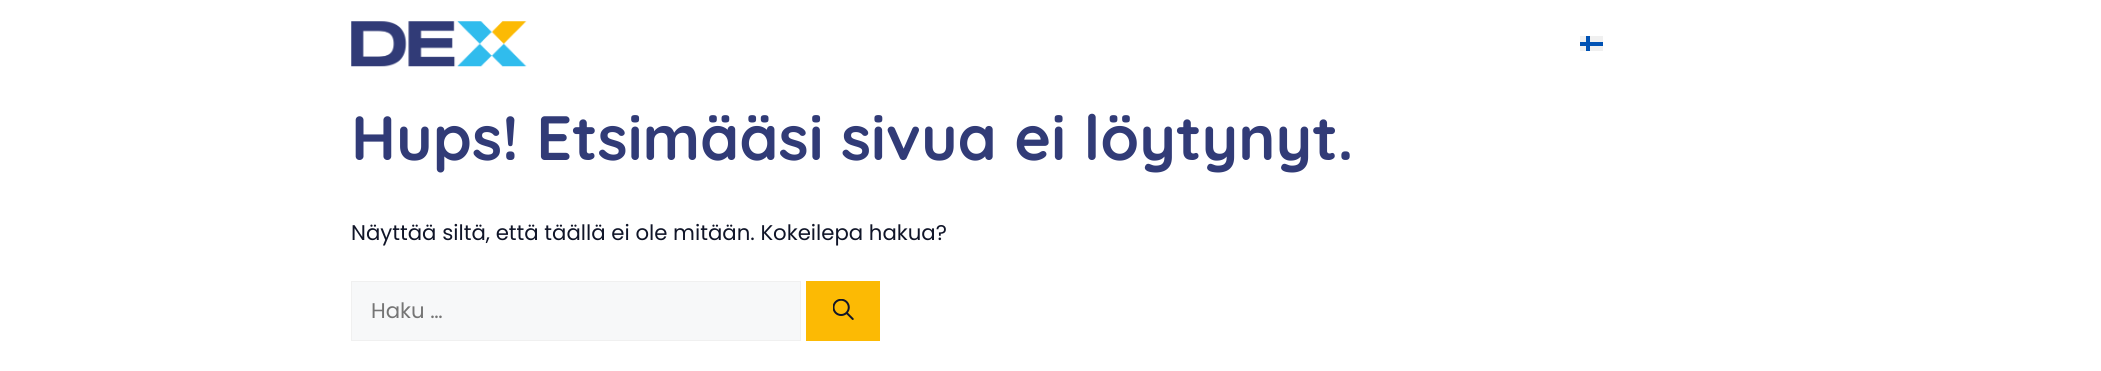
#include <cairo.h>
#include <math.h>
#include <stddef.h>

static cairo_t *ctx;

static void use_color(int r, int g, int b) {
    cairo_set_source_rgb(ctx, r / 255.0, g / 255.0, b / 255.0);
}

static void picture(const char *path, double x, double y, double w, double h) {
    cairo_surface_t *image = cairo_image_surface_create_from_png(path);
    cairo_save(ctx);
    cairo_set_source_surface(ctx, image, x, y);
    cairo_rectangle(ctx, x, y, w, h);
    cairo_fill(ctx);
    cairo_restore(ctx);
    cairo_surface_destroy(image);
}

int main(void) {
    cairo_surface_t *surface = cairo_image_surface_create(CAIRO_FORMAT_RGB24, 2101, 371);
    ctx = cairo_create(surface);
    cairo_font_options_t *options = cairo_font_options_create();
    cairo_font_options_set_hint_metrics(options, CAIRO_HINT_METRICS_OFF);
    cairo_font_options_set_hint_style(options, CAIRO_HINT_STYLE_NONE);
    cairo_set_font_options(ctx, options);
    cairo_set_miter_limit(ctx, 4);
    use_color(255, 255, 255);
    cairo_paint(ctx);
    picture("img1.png", 351, 21, 176, 46);
    use_color(240, 240, 240);
    cairo_rectangle(ctx, 1580, 36, 23, 15);
    cairo_fill(ctx);
    use_color(0, 82, 180);
    cairo_rectangle(ctx, 1580, 42, 23, 4);
    cairo_fill(ctx);
    cairo_rectangle(ctx, 1586, 36, 4, 15);
    cairo_fill(ctx);
    cairo_select_font_face(ctx, "Quicksand", CAIRO_FONT_SLANT_NORMAL, CAIRO_FONT_WEIGHT_BOLD);
    cairo_set_font_size(ctx, 62.5);
    use_color(49, 59, 119);
    cairo_move_to(ctx, 351, 160);
    cairo_show_text(ctx, "Hups! Etsimääsi sivua ei löytynyt.");
    cairo_select_font_face(ctx, "Poppins", CAIRO_FONT_SLANT_NORMAL, CAIRO_FONT_WEIGHT_NORMAL);
    cairo_set_font_size(ctx, 21.25);
    use_color(16, 21, 40);
    cairo_move_to(ctx, 351, 240);
    cairo_show_text(ctx, "Näyttää siltä, että täällä ei ole mitään. Kokeilepa hakua?");
    use_color(247, 248, 249);
    cairo_rectangle(ctx, 351.5, 281.5, 449, 59);
    cairo_fill_preserve(ctx);
    use_color(240, 240, 240);
    cairo_set_line_width(ctx, 1);
    cairo_stroke(ctx);
    use_color(117, 117, 117);
    cairo_move_to(ctx, 371, 318);
    cairo_show_text(ctx, "Haku …");
    use_color(252, 186, 4);
    cairo_rectangle(ctx, 806, 281, 74, 60);
    cairo_fill(ctx);
    picture("img2.png", 833, 299, 21, 21);
    cairo_surface_write_to_png(surface, "result.png");
    cairo_font_options_destroy(options);
    cairo_destroy(ctx);
    cairo_surface_destroy(surface);
    return 0;
}
